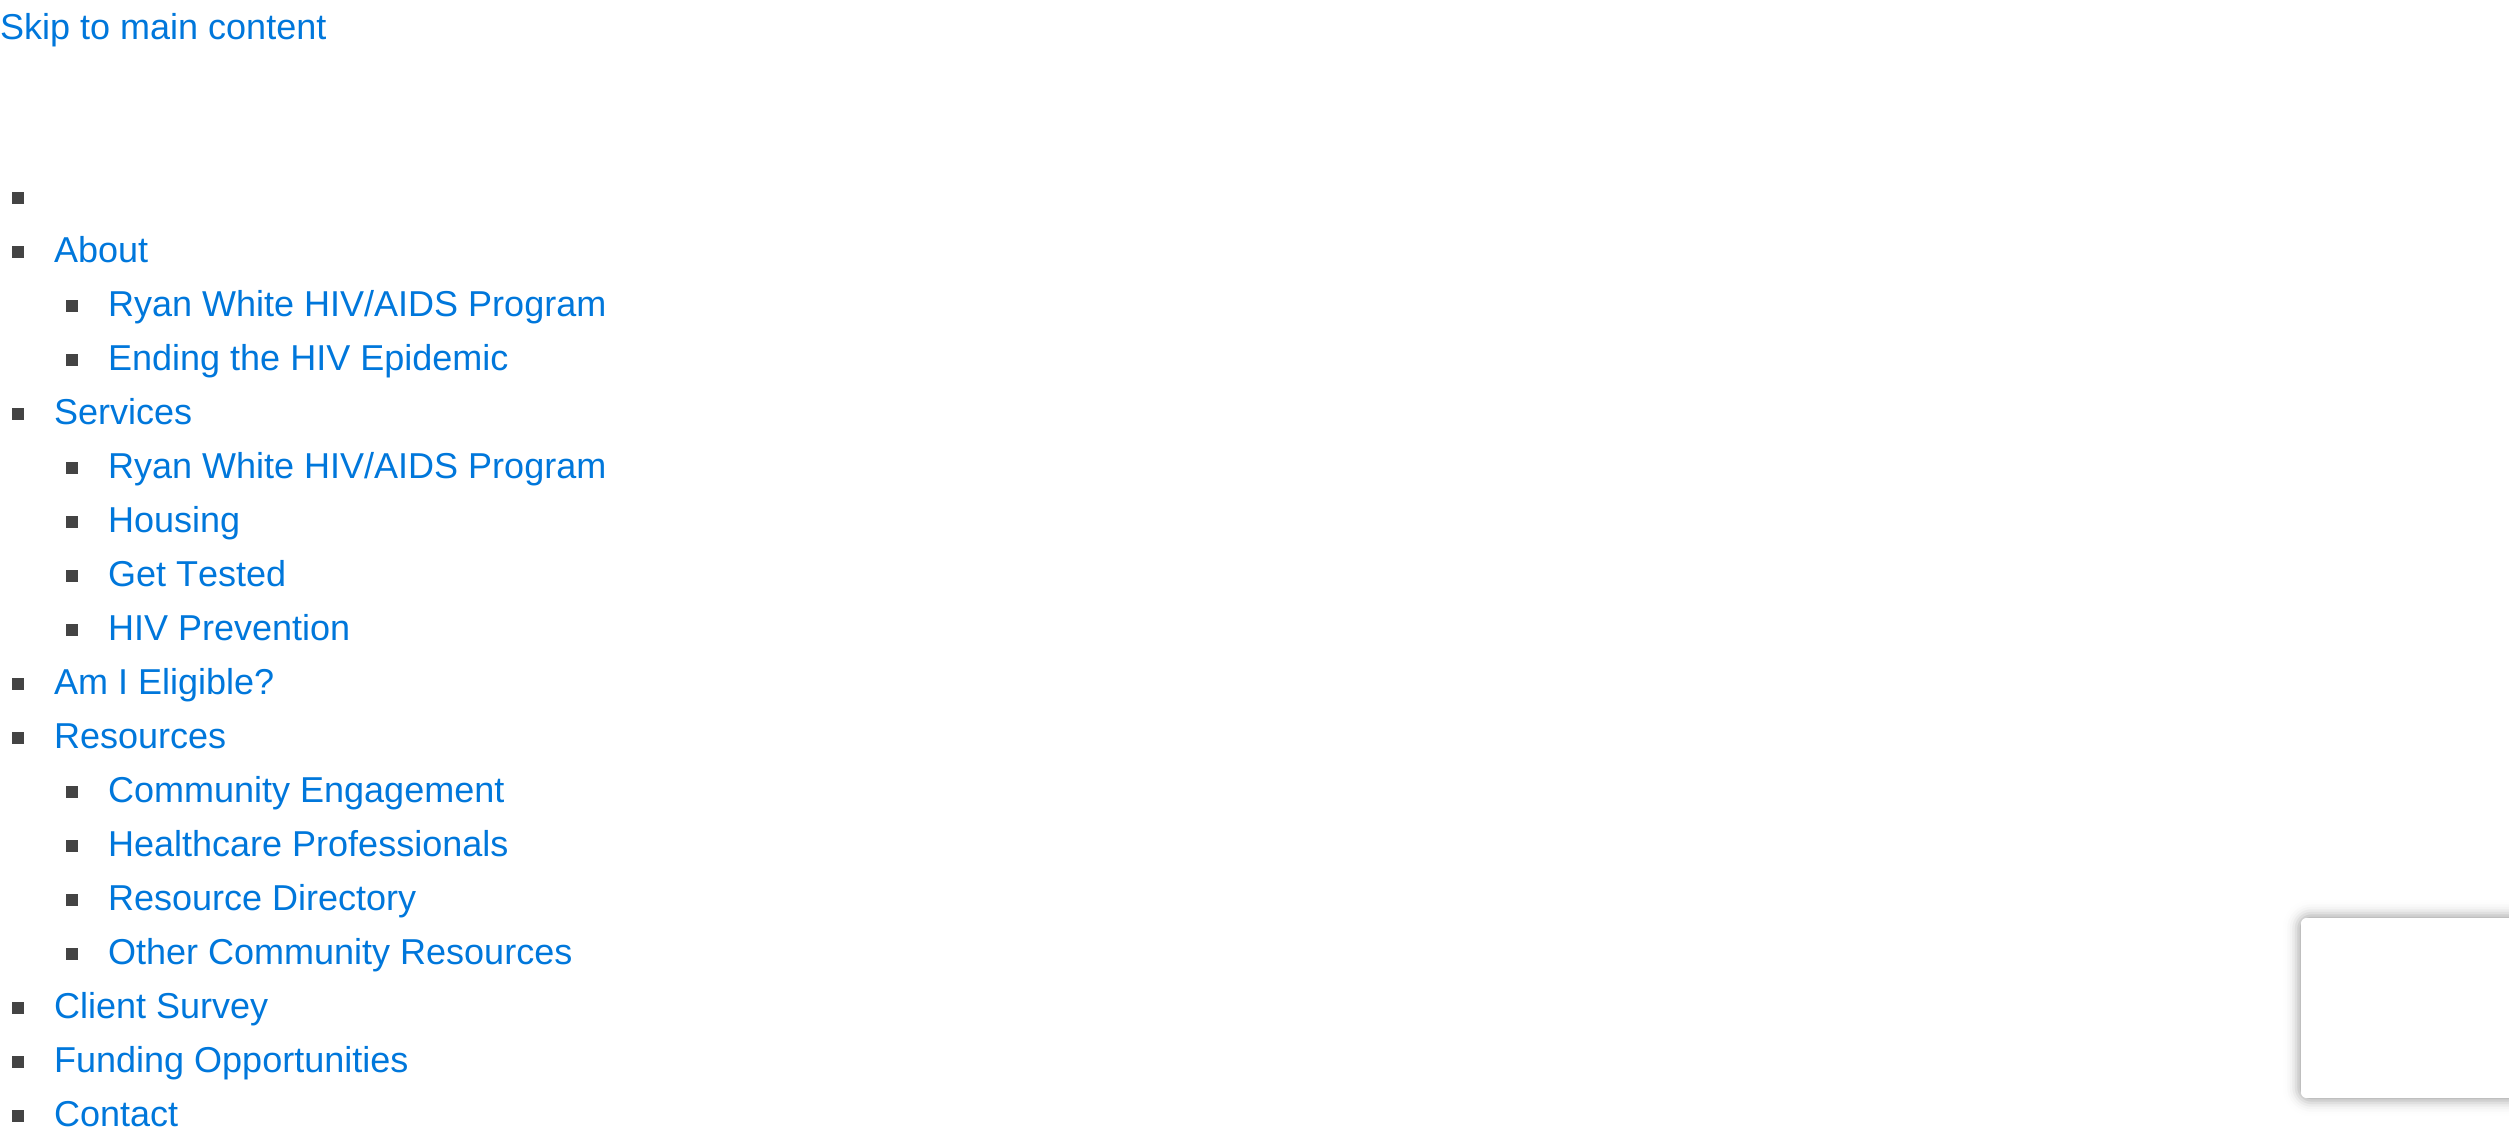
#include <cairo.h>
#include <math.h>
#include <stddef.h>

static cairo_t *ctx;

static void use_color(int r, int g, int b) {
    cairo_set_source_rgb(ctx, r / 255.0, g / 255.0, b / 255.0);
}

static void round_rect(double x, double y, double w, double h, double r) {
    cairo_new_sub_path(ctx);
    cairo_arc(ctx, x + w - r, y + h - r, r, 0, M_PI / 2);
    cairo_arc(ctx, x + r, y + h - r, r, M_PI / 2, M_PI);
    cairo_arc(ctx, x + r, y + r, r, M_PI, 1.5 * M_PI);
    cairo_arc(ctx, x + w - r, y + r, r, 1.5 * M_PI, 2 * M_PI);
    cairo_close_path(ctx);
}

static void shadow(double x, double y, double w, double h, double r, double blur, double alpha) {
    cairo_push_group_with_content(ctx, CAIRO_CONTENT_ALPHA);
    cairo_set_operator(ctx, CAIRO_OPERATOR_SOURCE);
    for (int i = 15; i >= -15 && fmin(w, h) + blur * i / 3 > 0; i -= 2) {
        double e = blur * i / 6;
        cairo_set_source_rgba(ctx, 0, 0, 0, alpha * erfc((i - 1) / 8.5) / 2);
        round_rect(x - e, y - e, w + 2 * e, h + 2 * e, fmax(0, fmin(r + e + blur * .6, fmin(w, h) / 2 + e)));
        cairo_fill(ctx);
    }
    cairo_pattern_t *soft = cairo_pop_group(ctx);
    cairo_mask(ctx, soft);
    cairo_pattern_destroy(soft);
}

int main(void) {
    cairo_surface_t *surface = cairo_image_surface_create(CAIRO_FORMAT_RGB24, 2509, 1139);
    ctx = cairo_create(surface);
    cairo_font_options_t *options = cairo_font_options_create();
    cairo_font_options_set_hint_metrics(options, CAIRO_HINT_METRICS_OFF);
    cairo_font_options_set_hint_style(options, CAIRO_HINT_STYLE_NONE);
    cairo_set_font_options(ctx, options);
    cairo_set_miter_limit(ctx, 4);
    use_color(255, 255, 255);
    cairo_paint(ctx);
    cairo_select_font_face(ctx, "Liberation Sans", CAIRO_FONT_SLANT_NORMAL, CAIRO_FONT_WEIGHT_NORMAL);
    cairo_set_font_size(ctx, 36);
    use_color(0, 119, 219);
    cairo_move_to(ctx, 0, 39);
    cairo_show_text(ctx, "Skip to main content");
    use_color(68, 68, 68);
    cairo_rectangle(ctx, 12, 192, 12, 12);
    cairo_fill(ctx);
    cairo_rectangle(ctx, 12, 246, 12, 12);
    cairo_fill(ctx);
    use_color(0, 119, 219);
    cairo_move_to(ctx, 54, 262);
    cairo_show_text(ctx, "About");
    use_color(68, 68, 68);
    cairo_rectangle(ctx, 66, 300, 12, 12);
    cairo_fill(ctx);
    use_color(0, 119, 219);
    cairo_move_to(ctx, 108, 316);
    cairo_show_text(ctx, "Ryan White HIV/AIDS Program");
    use_color(68, 68, 68);
    cairo_rectangle(ctx, 66, 354, 12, 12);
    cairo_fill(ctx);
    use_color(0, 119, 219);
    cairo_move_to(ctx, 108, 370);
    cairo_show_text(ctx, "Ending the HIV Epidemic");
    use_color(68, 68, 68);
    cairo_rectangle(ctx, 12, 408, 12, 12);
    cairo_fill(ctx);
    use_color(0, 119, 219);
    cairo_move_to(ctx, 54, 424);
    cairo_show_text(ctx, "Services");
    use_color(68, 68, 68);
    cairo_rectangle(ctx, 66, 462, 12, 12);
    cairo_fill(ctx);
    use_color(0, 119, 219);
    cairo_move_to(ctx, 108, 478);
    cairo_show_text(ctx, "Ryan White HIV/AIDS Program");
    use_color(68, 68, 68);
    cairo_rectangle(ctx, 66, 516, 12, 12);
    cairo_fill(ctx);
    use_color(0, 119, 219);
    cairo_move_to(ctx, 108, 532);
    cairo_show_text(ctx, "Housing");
    use_color(68, 68, 68);
    cairo_rectangle(ctx, 66, 570, 12, 12);
    cairo_fill(ctx);
    use_color(0, 119, 219);
    cairo_move_to(ctx, 108, 586);
    cairo_show_text(ctx, "Get Tested");
    use_color(68, 68, 68);
    cairo_rectangle(ctx, 66, 624, 12, 12);
    cairo_fill(ctx);
    use_color(0, 119, 219);
    cairo_move_to(ctx, 108, 640);
    cairo_show_text(ctx, "HIV Prevention");
    use_color(68, 68, 68);
    cairo_rectangle(ctx, 12, 678, 12, 12);
    cairo_fill(ctx);
    use_color(0, 119, 219);
    cairo_move_to(ctx, 54, 694);
    cairo_show_text(ctx, "Am I Eligible?");
    use_color(68, 68, 68);
    cairo_rectangle(ctx, 12, 732, 12, 12);
    cairo_fill(ctx);
    use_color(0, 119, 219);
    cairo_move_to(ctx, 54, 748);
    cairo_show_text(ctx, "Resources");
    use_color(68, 68, 68);
    cairo_rectangle(ctx, 66, 786, 12, 12);
    cairo_fill(ctx);
    use_color(0, 119, 219);
    cairo_move_to(ctx, 108, 802);
    cairo_show_text(ctx, "Community Engagement");
    use_color(68, 68, 68);
    cairo_rectangle(ctx, 66, 840, 12, 12);
    cairo_fill(ctx);
    use_color(0, 119, 219);
    cairo_move_to(ctx, 108, 856);
    cairo_show_text(ctx, "Healthcare Professionals");
    use_color(68, 68, 68);
    cairo_rectangle(ctx, 66, 894, 12, 12);
    cairo_fill(ctx);
    use_color(0, 119, 219);
    cairo_move_to(ctx, 108, 910);
    cairo_show_text(ctx, "Resource Directory");
    use_color(68, 68, 68);
    cairo_rectangle(ctx, 66, 948, 12, 12);
    cairo_fill(ctx);
    use_color(0, 119, 219);
    cairo_move_to(ctx, 108, 964);
    cairo_show_text(ctx, "Other Community Resources");
    use_color(68, 68, 68);
    cairo_rectangle(ctx, 12, 1002, 12, 12);
    cairo_fill(ctx);
    use_color(0, 119, 219);
    cairo_move_to(ctx, 54, 1018);
    cairo_show_text(ctx, "Client Survey");
    use_color(68, 68, 68);
    cairo_rectangle(ctx, 12, 1056, 12, 12);
    cairo_fill(ctx);
    use_color(0, 119, 219);
    cairo_move_to(ctx, 54, 1072);
    cairo_show_text(ctx, "Funding Opportunities");
    use_color(68, 68, 68);
    cairo_rectangle(ctx, 12, 1110, 12, 12);
    cairo_fill(ctx);
    use_color(0, 119, 219);
    cairo_move_to(ctx, 54, 1126);
    cairo_show_text(ctx, "Contact");
    cairo_save(ctx);
    cairo_set_fill_rule(ctx, CAIRO_FILL_RULE_EVEN_ODD);
    cairo_new_path(ctx);
    cairo_move_to(ctx, 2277, 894);
    cairo_line_to(ctx, 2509, 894);
    cairo_line_to(ctx, 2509, 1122);
    cairo_line_to(ctx, 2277, 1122);
    cairo_close_path(ctx);
    cairo_move_to(ctx, 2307, 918);
    cairo_line_to(ctx, 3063, 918);
    cairo_curve_to(ctx, 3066.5, 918, 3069, 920.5, 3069, 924);
    cairo_line_to(ctx, 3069, 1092);
    cairo_curve_to(ctx, 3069, 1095.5, 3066.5, 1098, 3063, 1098);
    cairo_line_to(ctx, 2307, 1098);
    cairo_curve_to(ctx, 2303.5, 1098, 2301, 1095.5, 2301, 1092);
    cairo_line_to(ctx, 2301, 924);
    cairo_curve_to(ctx, 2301, 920.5, 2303.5, 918, 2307, 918);
    cairo_close_path(ctx);
    cairo_clip(ctx);
    use_color(128, 128, 128);
    shadow(2301, 918, 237, 180, 6, 7.5, 1);
    cairo_restore(ctx);
    cairo_surface_write_to_png(surface, "result.png");
    cairo_font_options_destroy(options);
    cairo_destroy(ctx);
    cairo_surface_destroy(surface);
    return 0;
}
